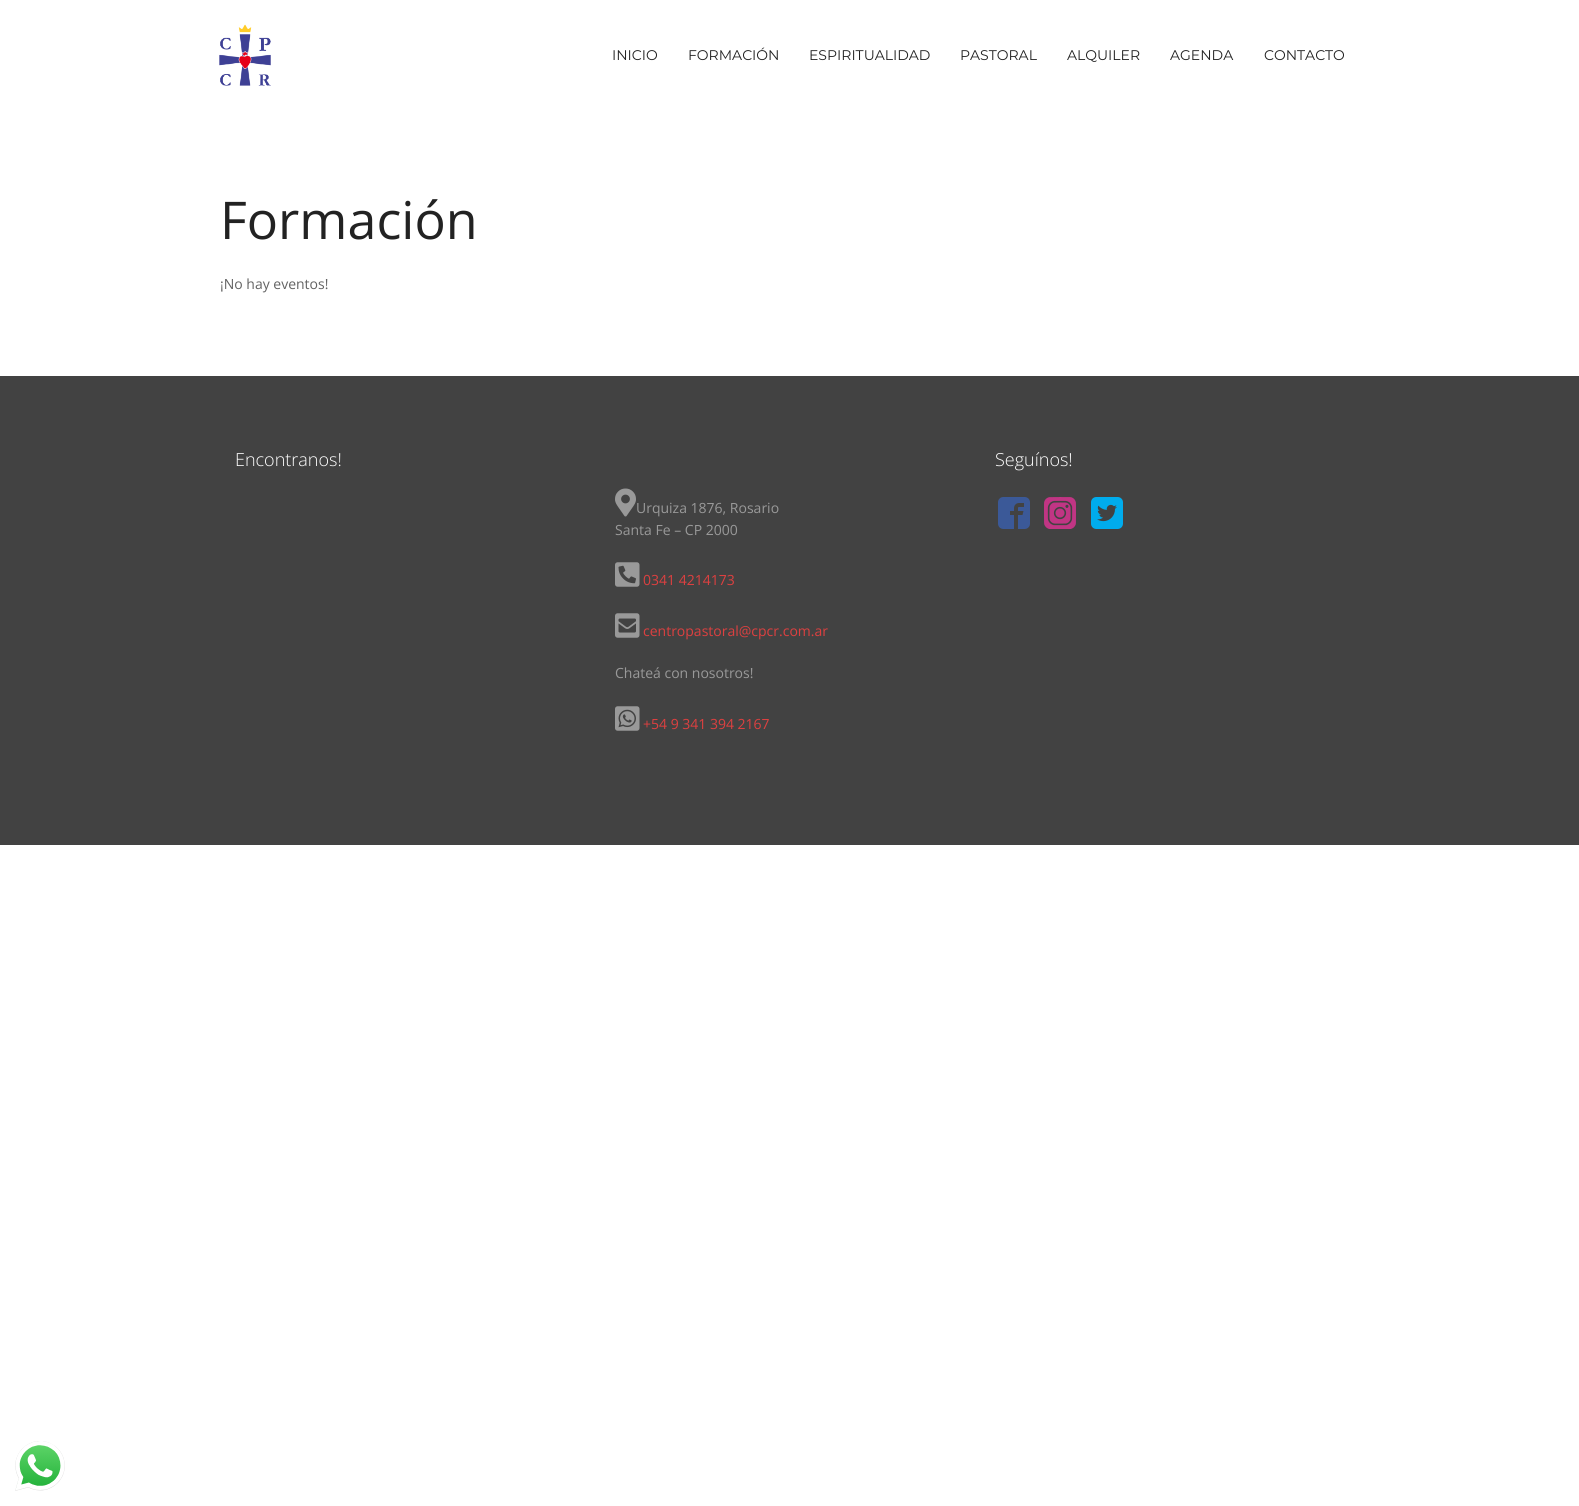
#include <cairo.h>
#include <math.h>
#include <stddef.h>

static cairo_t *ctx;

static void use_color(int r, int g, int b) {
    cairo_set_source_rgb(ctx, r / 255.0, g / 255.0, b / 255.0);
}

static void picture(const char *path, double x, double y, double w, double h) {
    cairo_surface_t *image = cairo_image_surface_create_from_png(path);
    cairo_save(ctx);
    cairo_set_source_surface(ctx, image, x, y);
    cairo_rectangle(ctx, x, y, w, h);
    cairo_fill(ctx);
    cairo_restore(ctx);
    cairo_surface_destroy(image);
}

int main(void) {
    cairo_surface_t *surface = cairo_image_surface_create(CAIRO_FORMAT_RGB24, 1579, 1506);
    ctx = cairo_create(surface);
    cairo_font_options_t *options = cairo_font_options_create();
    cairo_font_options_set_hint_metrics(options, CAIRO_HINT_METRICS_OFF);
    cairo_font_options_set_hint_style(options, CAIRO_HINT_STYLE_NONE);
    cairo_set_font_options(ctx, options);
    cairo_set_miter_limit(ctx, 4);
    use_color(255, 255, 255);
    cairo_paint(ctx);
    picture("img1.png", 219, 24, 52, 62);
    cairo_select_font_face(ctx, "Montserrat", CAIRO_FONT_SLANT_NORMAL, CAIRO_FONT_WEIGHT_NORMAL);
    cairo_set_font_size(ctx, 14);
    use_color(34, 34, 34);
    cairo_move_to(ctx, 612, 60);
    cairo_show_text(ctx, "INICIO");
    cairo_move_to(ctx, 688, 60);
    cairo_show_text(ctx, "FORMACIÓN");
    cairo_move_to(ctx, 809, 60);
    cairo_show_text(ctx, "ESPIRITUALIDAD");
    cairo_move_to(ctx, 960, 60);
    cairo_show_text(ctx, "PASTORAL");
    cairo_move_to(ctx, 1067, 60);
    cairo_show_text(ctx, "ALQUILER");
    cairo_move_to(ctx, 1170, 60);
    cairo_show_text(ctx, "AGENDA");
    cairo_move_to(ctx, 1264, 60);
    cairo_show_text(ctx, "CONTACTO");
    cairo_select_font_face(ctx, "Open Sans", CAIRO_FONT_SLANT_NORMAL, CAIRO_FONT_WEIGHT_NORMAL);
    cairo_set_font_size(ctx, 52);
    cairo_move_to(ctx, 220, 239);
    cairo_show_text(ctx, "Formación");
    cairo_set_font_size(ctx, 14);
    use_color(98, 98, 98);
    cairo_move_to(ctx, 220, 289);
    cairo_show_text(ctx, "¡No hay eventos!");
    use_color(66, 66, 66);
    cairo_rectangle(ctx, 0, 376, 1579, 469);
    cairo_fill(ctx);
    cairo_select_font_face(ctx, "Open Sans Light", CAIRO_FONT_SLANT_NORMAL, CAIRO_FONT_WEIGHT_NORMAL);
    cairo_set_font_size(ctx, 18);
    use_color(255, 255, 255);
    cairo_move_to(ctx, 235, 466);
    cairo_show_text(ctx, "Encontranos!");
    cairo_move_to(ctx, 995, 466);
    cairo_show_text(ctx, "Seguínos!");
    picture("img2.png", 998, 497, 32, 32);
    picture("img3.png", 1044, 497, 32, 32);
    picture("img4.png", 1091, 497, 32, 32);
    picture("img5.png", 615, 488, 21, 29);
    cairo_select_font_face(ctx, "Open Sans", CAIRO_FONT_SLANT_NORMAL, CAIRO_FONT_WEIGHT_NORMAL);
    cairo_set_font_size(ctx, 14);
    use_color(153, 153, 153);
    cairo_move_to(ctx, 636, 513);
    cairo_show_text(ctx, "Urquiza 1876, Rosario");
    cairo_move_to(ctx, 615, 535);
    cairo_show_text(ctx, "Santa Fe – CP 2000");
    picture("img6.png", 615, 562, 25, 25);
    use_color(221, 64, 64);
    cairo_move_to(ctx, 643, 585);
    cairo_show_text(ctx, "0341 4214173");
    picture("img7.png", 615, 613, 25, 25);
    cairo_move_to(ctx, 643, 636);
    cairo_show_text(ctx, "centropastoral@cpcr.com.ar");
    use_color(153, 153, 153);
    cairo_move_to(ctx, 615, 678);
    cairo_show_text(ctx, "Chateá con nosotros!");
    picture("img8.png", 615, 706, 25, 25);
    use_color(221, 64, 64);
    cairo_move_to(ctx, 643, 729);
    cairo_show_text(ctx, "+54 9 341 394 2167");
    picture("img9.png", 15, 1441, 50, 50);
    cairo_surface_write_to_png(surface, "result.png");
    cairo_font_options_destroy(options);
    cairo_destroy(ctx);
    cairo_surface_destroy(surface);
    return 0;
}
